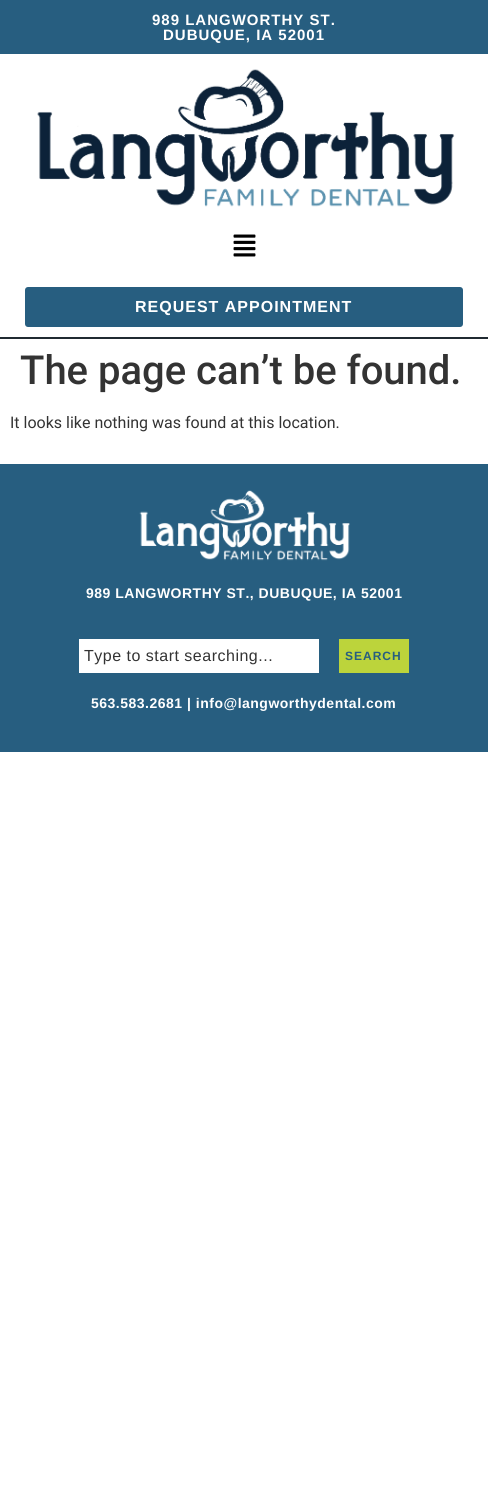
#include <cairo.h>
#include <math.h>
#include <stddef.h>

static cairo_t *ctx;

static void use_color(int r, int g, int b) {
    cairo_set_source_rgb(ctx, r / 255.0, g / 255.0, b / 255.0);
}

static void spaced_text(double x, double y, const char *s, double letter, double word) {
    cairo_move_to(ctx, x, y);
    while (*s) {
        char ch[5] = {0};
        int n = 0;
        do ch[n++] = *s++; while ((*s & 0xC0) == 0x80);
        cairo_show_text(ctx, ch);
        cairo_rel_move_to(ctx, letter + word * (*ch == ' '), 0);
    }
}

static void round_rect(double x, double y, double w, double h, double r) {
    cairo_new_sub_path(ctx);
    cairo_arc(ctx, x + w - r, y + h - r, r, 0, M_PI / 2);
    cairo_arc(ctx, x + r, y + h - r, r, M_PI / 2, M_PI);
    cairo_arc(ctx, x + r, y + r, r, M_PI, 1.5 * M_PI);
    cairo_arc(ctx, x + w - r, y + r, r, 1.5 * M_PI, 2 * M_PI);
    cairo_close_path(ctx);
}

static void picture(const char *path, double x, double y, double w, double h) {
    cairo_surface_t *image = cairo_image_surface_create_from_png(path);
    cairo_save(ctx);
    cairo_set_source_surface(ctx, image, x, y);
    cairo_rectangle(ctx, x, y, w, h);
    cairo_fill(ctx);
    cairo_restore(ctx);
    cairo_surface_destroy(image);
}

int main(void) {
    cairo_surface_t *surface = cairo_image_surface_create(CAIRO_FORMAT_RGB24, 488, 1493);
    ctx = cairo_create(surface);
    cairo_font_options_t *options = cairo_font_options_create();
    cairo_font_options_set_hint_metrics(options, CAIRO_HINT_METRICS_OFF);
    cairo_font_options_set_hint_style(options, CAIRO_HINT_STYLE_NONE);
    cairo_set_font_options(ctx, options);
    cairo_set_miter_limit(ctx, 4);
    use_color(255, 255, 255);
    cairo_paint(ctx);
    use_color(39, 94, 128);
    cairo_rectangle(ctx, 0, 0, 488, 54);
    cairo_fill(ctx);
    cairo_select_font_face(ctx, "Liberation Sans", CAIRO_FONT_SLANT_NORMAL, CAIRO_FONT_WEIGHT_BOLD);
    cairo_set_font_size(ctx, 15);
    use_color(255, 255, 255);
    spaced_text(152, 25, "989 LANGWORTHY ST.", 1, 0);
    spaced_text(163, 40, "DUBUQUE, IA 52001", 1, 0);
    use_color(32, 42, 49);
    cairo_rectangle(ctx, 0, 337, 488, 2);
    cairo_fill(ctx);
    picture("img1.png", 37, 69, 418, 138);
    picture("img2.png", 233, 234, 23, 23);
    use_color(39, 94, 128);
    round_rect(25, 287, 438, 40, 3);
    cairo_fill(ctx);
    cairo_set_font_size(ctx, 16);
    use_color(255, 255, 255);
    spaced_text(135, 312, "REQUEST APPOINTMENT", 1, 0);
    cairo_select_font_face(ctx, "Roboto Medium", CAIRO_FONT_SLANT_NORMAL, CAIRO_FONT_WEIGHT_NORMAL);
    cairo_set_font_size(ctx, 40);
    use_color(51, 51, 51);
    cairo_move_to(ctx, 20, 384);
    cairo_show_text(ctx, "The page can’t be found.");
    cairo_select_font_face(ctx, "Roboto", CAIRO_FONT_SLANT_NORMAL, CAIRO_FONT_WEIGHT_NORMAL);
    cairo_set_font_size(ctx, 16);
    cairo_move_to(ctx, 10, 428);
    cairo_show_text(ctx, "It looks like nothing was found at this location.");
    use_color(39, 94, 128);
    cairo_rectangle(ctx, 0, 464, 488, 288);
    cairo_fill(ctx);
    picture("img3.png", 139, 490, 211, 71);
    cairo_select_font_face(ctx, "Liberation Sans", CAIRO_FONT_SLANT_NORMAL, CAIRO_FONT_WEIGHT_BOLD);
    cairo_set_font_size(ctx, 14);
    use_color(255, 255, 255);
    spaced_text(86, 598, "989 LANGWORTHY ST., DUBUQUE, IA 52001", 0.5, 0);
    cairo_rectangle(ctx, 79, 639, 240, 34);
    cairo_fill(ctx);
    cairo_select_font_face(ctx, "Liberation Sans", CAIRO_FONT_SLANT_NORMAL, CAIRO_FONT_WEIGHT_NORMAL);
    cairo_set_font_size(ctx, 16);
    use_color(51, 51, 51);
    spaced_text(84, 661, "Type to start searching...", 0.5, 0);
    use_color(188, 212, 59);
    cairo_rectangle(ctx, 339, 639, 70, 34);
    cairo_fill(ctx);
    cairo_select_font_face(ctx, "Liberation Sans", CAIRO_FONT_SLANT_NORMAL, CAIRO_FONT_WEIGHT_BOLD);
    cairo_set_font_size(ctx, 12);
    use_color(39, 94, 128);
    spaced_text(345, 660, "SEARCH", 1, 0);
    cairo_set_font_size(ctx, 14);
    use_color(255, 255, 255);
    spaced_text(91, 708, "563.583.2681 | info@langworthydental.com", 0.5, 0);
    cairo_surface_write_to_png(surface, "result.png");
    cairo_font_options_destroy(options);
    cairo_destroy(ctx);
    cairo_surface_destroy(surface);
    return 0;
}
